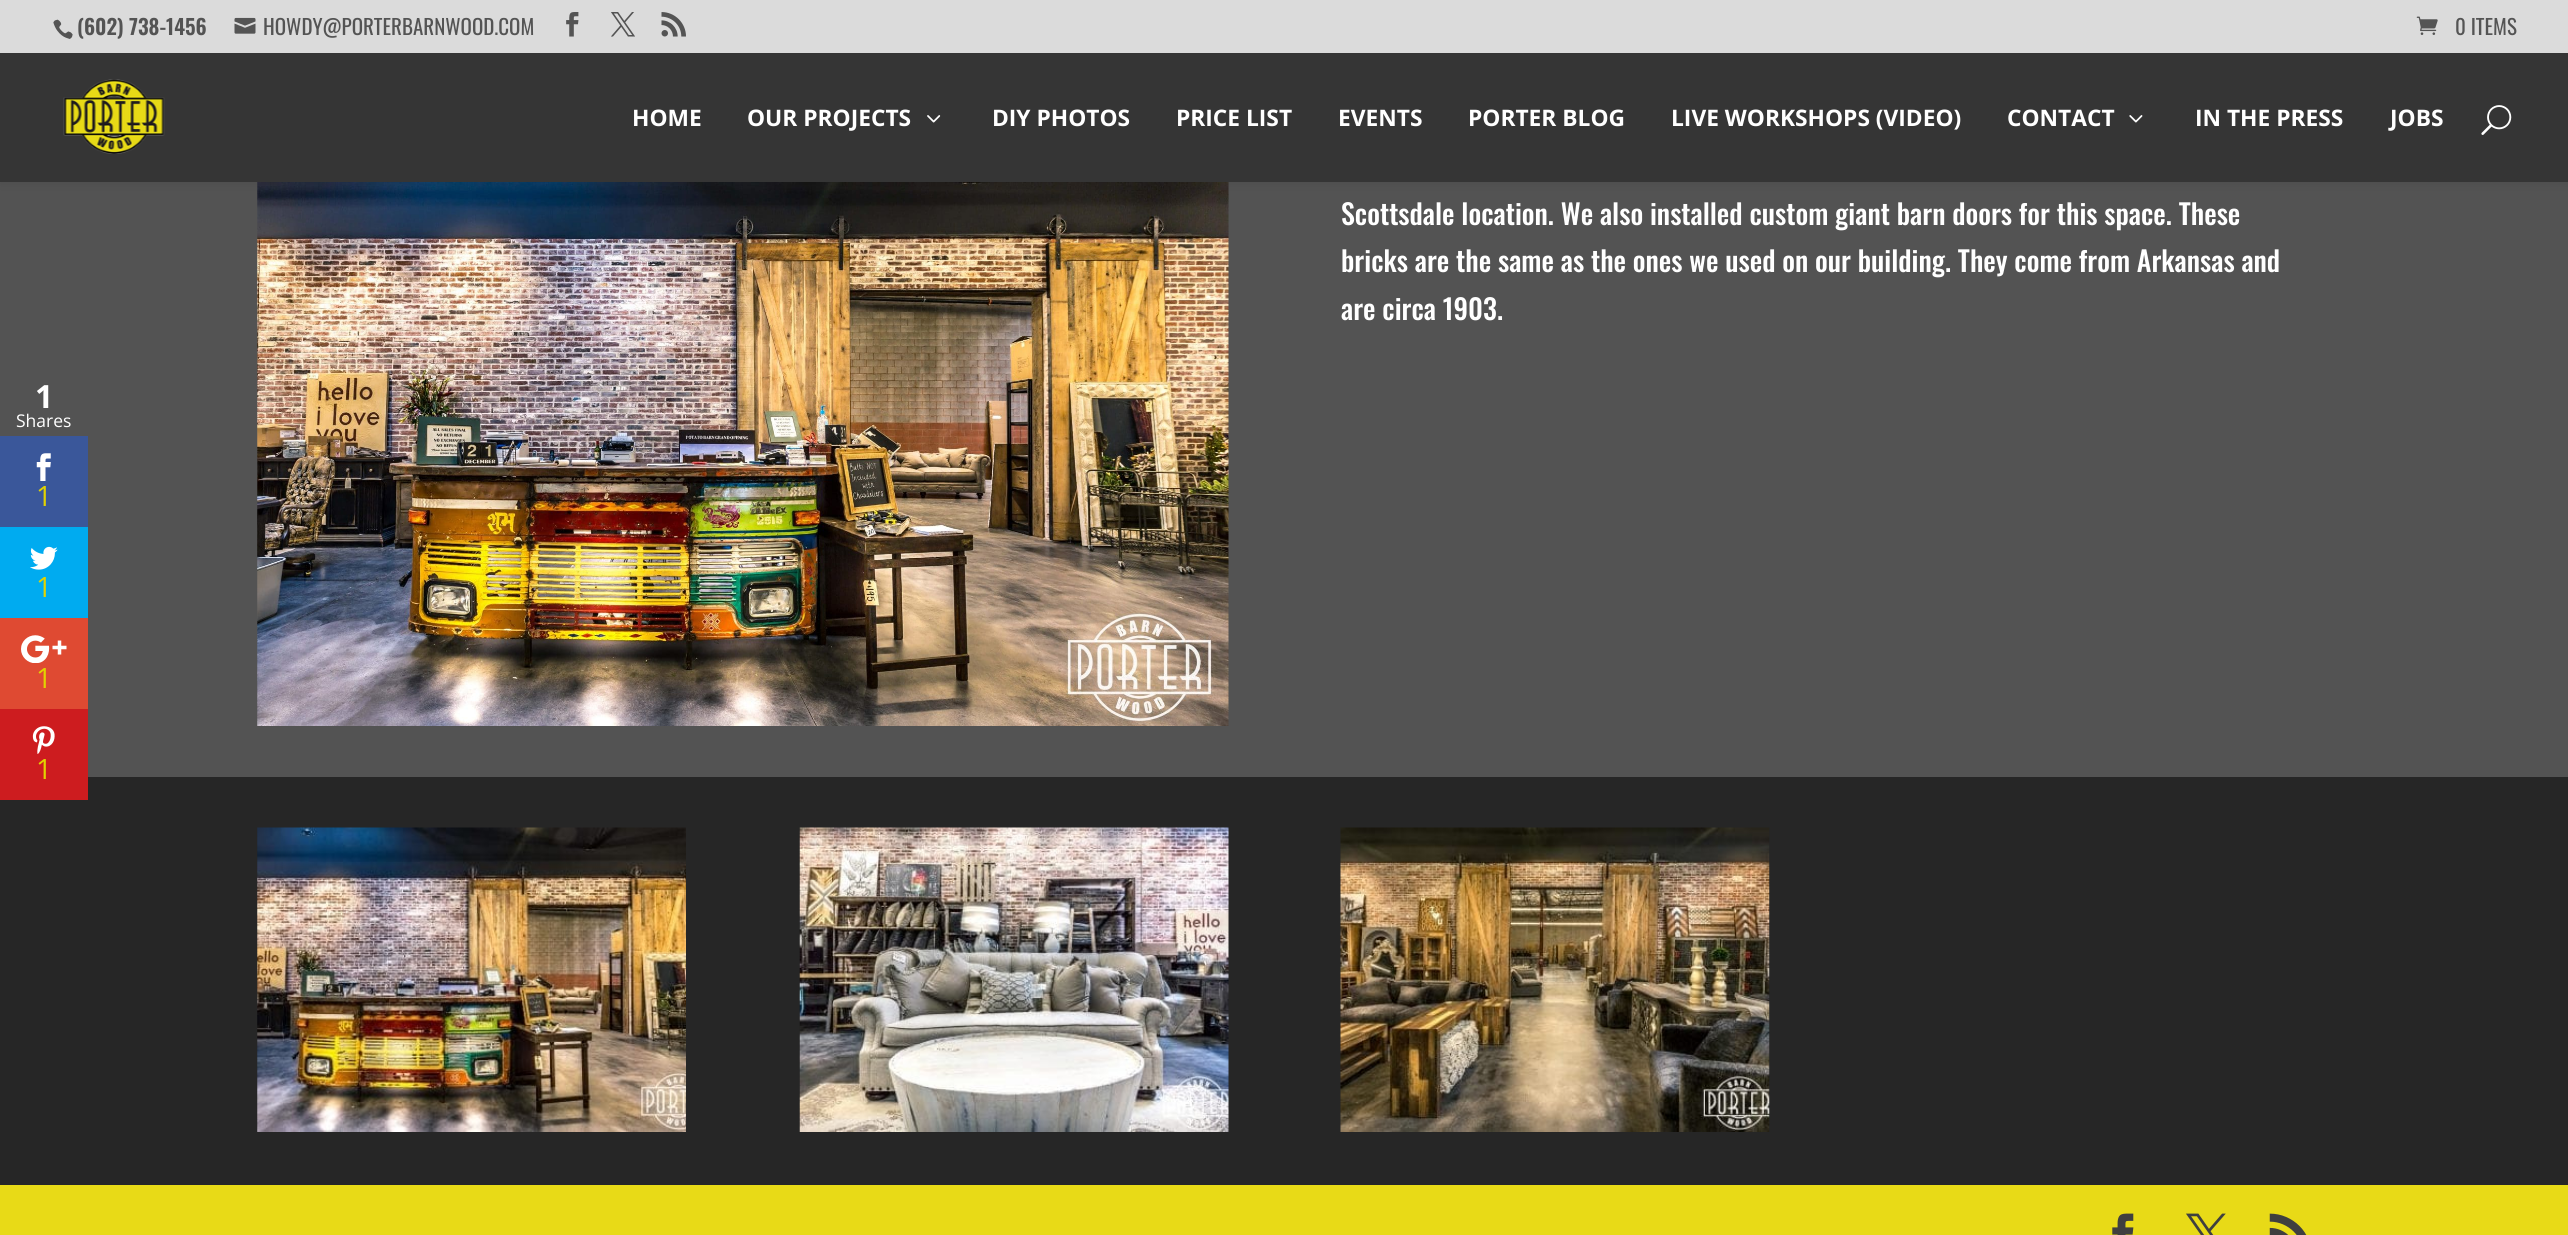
#include <cairo.h>
#include <math.h>
#include <stddef.h>

static cairo_t *ctx;

static void use_color(int r, int g, int b) {
    cairo_set_source_rgb(ctx, r / 255.0, g / 255.0, b / 255.0);
}

static void round_rect(double x, double y, double w, double h, double r) {
    cairo_new_sub_path(ctx);
    cairo_arc(ctx, x + w - r, y + h - r, r, 0, M_PI / 2);
    cairo_arc(ctx, x + r, y + h - r, r, M_PI / 2, M_PI);
    cairo_arc(ctx, x + r, y + r, r, M_PI, 1.5 * M_PI);
    cairo_arc(ctx, x + w - r, y + r, r, 1.5 * M_PI, 2 * M_PI);
    cairo_close_path(ctx);
}

static void shadow(double x, double y, double w, double h, double r, double blur, double alpha) {
    cairo_push_group_with_content(ctx, CAIRO_CONTENT_ALPHA);
    cairo_set_operator(ctx, CAIRO_OPERATOR_SOURCE);
    for (int i = 15; i >= -15 && fmin(w, h) + blur * i / 3 > 0; i -= 2) {
        double e = blur * i / 6;
        cairo_set_source_rgba(ctx, 0, 0, 0, alpha * erfc((i - 1) / 8.5) / 2);
        round_rect(x - e, y - e, w + 2 * e, h + 2 * e, fmax(0, fmin(r + e + blur * .6, fmin(w, h) / 2 + e)));
        cairo_fill(ctx);
    }
    cairo_pattern_t *soft = cairo_pop_group(ctx);
    cairo_mask(ctx, soft);
    cairo_pattern_destroy(soft);
}

static void picture(const char *path, double x, double y, double w, double h) {
    cairo_surface_t *image = cairo_image_surface_create_from_png(path);
    cairo_save(ctx);
    cairo_set_source_surface(ctx, image, x, y);
    cairo_rectangle(ctx, x, y, w, h);
    cairo_fill(ctx);
    cairo_restore(ctx);
    cairo_surface_destroy(image);
}

int main(void) {
    cairo_surface_t *surface = cairo_image_surface_create(CAIRO_FORMAT_RGB24, 2568, 1235);
    ctx = cairo_create(surface);
    cairo_font_options_t *options = cairo_font_options_create();
    cairo_font_options_set_hint_metrics(options, CAIRO_HINT_METRICS_OFF);
    cairo_font_options_set_hint_style(options, CAIRO_HINT_STYLE_NONE);
    cairo_set_font_options(ctx, options);
    cairo_set_miter_limit(ctx, 4);
    use_color(232, 218, 23);
    cairo_paint(ctx);
    use_color(83, 83, 83);
    cairo_rectangle(ctx, 0, 182, 2568, 595);
    cairo_fill(ctx);
    picture("img11.png", 257, 182, 972, 544);
    use_color(0, 0, 0);
    shadow(0, 53, 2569, 129, 0, 6, 0.1);
    use_color(219, 219, 219);
    cairo_rectangle(ctx, 0, 0, 2568, 53);
    cairo_fill(ctx);
    picture("img1.png", 53, 19, 20, 20);
    cairo_select_font_face(ctx, "Oswald SemiBold", CAIRO_FONT_SLANT_NORMAL, CAIRO_FONT_WEIGHT_NORMAL);
    cairo_set_font_size(ctx, 21);
    use_color(84, 84, 84);
    cairo_move_to(ctx, 77, 35);
    cairo_show_text(ctx, "(602) 738-1456");
    picture("img2.png", 234, 17, 22, 17);
    cairo_select_font_face(ctx, "Oswald", CAIRO_FONT_SLANT_NORMAL, CAIRO_FONT_WEIGHT_NORMAL);
    cairo_move_to(ctx, 263, 35);
    cairo_show_text(ctx, "HOWDY@PORTERBARNWOOD.COM");
    picture("img3.png", 566, 12, 13, 25);
    picture("img4.png", 611, 12, 24, 25);
    picture("img5.png", 661, 12, 25, 25);
    picture("img6.png", 2416, 16, 22, 19);
    cairo_move_to(ctx, 2455, 35);
    cairo_show_text(ctx, "0 ITEMS");
    use_color(53, 53, 53);
    cairo_rectangle(ctx, 0, 53, 2568, 129);
    cairo_fill(ctx);
    picture("img7.png", 63, 79, 102, 75);
    cairo_select_font_face(ctx, "Open Sans", CAIRO_FONT_SLANT_NORMAL, CAIRO_FONT_WEIGHT_BOLD);
    cairo_set_font_size(ctx, 22.75);
    use_color(255, 255, 255);
    cairo_move_to(ctx, 632, 126);
    cairo_show_text(ctx, "HOME");
    cairo_move_to(ctx, 747, 126);
    cairo_show_text(ctx, "OUR PROJECTS");
    picture("img8.png", 927, 115, 14, 8);
    cairo_move_to(ctx, 992, 126);
    cairo_show_text(ctx, "DIY PHOTOS");
    cairo_move_to(ctx, 1176, 126);
    cairo_show_text(ctx, "PRICE LIST");
    cairo_move_to(ctx, 1338, 126);
    cairo_show_text(ctx, "EVENTS");
    cairo_move_to(ctx, 1468, 126);
    cairo_show_text(ctx, "PORTER BLOG");
    cairo_move_to(ctx, 1671, 126);
    cairo_show_text(ctx, "LIVE WORKSHOPS (VIDEO)");
    cairo_move_to(ctx, 2007, 126);
    cairo_show_text(ctx, "CONTACT");
    picture("img9.png", 2129, 115, 14, 8);
    cairo_move_to(ctx, 2195, 126);
    cairo_show_text(ctx, "IN THE PRESS");
    cairo_move_to(ctx, 2390, 126);
    cairo_show_text(ctx, "JOBS");
    picture("img10.png", 2481, 105, 31, 30);
    cairo_select_font_face(ctx, "Oswald Medium", CAIRO_FONT_SLANT_NORMAL, CAIRO_FONT_WEIGHT_NORMAL);
    cairo_set_font_size(ctx, 28);
    cairo_move_to(ctx, 1341, 225);
    cairo_show_text(ctx, "Scottsdale location. We also installed custom giant barn doors for this space. These");
    cairo_move_to(ctx, 1341, 272);
    cairo_show_text(ctx, "bricks are the same as the ones we used on our building. They come from Arkansas and");
    cairo_move_to(ctx, 1341, 320);
    cairo_show_text(ctx, "are circa 1903.");
    use_color(38, 38, 38);
    cairo_rectangle(ctx, 0, 777, 2568, 408);
    cairo_fill(ctx);
    picture("img12.png", 257, 827, 429, 305);
    picture("img13.png", 799, 827, 430, 305);
    picture("img14.png", 1340, 827, 430, 305);
    picture("img15.png", 2112, 1213, 22, 22);
    picture("img16.png", 2186, 1213, 40, 22);
    picture("img17.png", 2269, 1213, 38, 22);
    cairo_select_font_face(ctx, "Open Sans", CAIRO_FONT_SLANT_NORMAL, CAIRO_FONT_WEIGHT_BOLD);
    cairo_set_font_size(ctx, 32);
    use_color(255, 255, 255);
    cairo_move_to(ctx, 35, 408);
    cairo_show_text(ctx, "1");
    cairo_select_font_face(ctx, "Open Sans", CAIRO_FONT_SLANT_NORMAL, CAIRO_FONT_WEIGHT_NORMAL);
    cairo_set_font_size(ctx, 17.5);
    cairo_move_to(ctx, 16, 427);
    cairo_show_text(ctx, "Shares");
    use_color(58, 87, 154);
    cairo_rectangle(ctx, 0, 436, 88, 91);
    cairo_fill(ctx);
    picture("img18.png", 36, 453, 15, 28);
    cairo_set_font_size(ctx, 28);
    use_color(226, 211, 0);
    cairo_move_to(ctx, 36, 506);
    cairo_show_text(ctx, "1");
    use_color(0, 171, 240);
    cairo_rectangle(ctx, 0, 527, 88, 91);
    cairo_fill(ctx);
    picture("img19.png", 30, 546, 28, 24);
    use_color(226, 211, 0);
    cairo_move_to(ctx, 36, 597);
    cairo_show_text(ctx, "1");
    use_color(223, 74, 50);
    cairo_rectangle(ctx, 0, 618, 88, 91);
    cairo_fill(ctx);
    picture("img20.png", 21, 635, 46, 28);
    use_color(226, 211, 0);
    cairo_move_to(ctx, 36, 688);
    cairo_show_text(ctx, "1");
    use_color(205, 28, 31);
    cairo_rectangle(ctx, 0, 709, 88, 91);
    cairo_fill(ctx);
    picture("img21.png", 32, 726, 23, 28);
    use_color(226, 211, 0);
    cairo_move_to(ctx, 36, 779);
    cairo_show_text(ctx, "1");
    cairo_surface_write_to_png(surface, "result.png");
    cairo_font_options_destroy(options);
    cairo_destroy(ctx);
    cairo_surface_destroy(surface);
    return 0;
}
